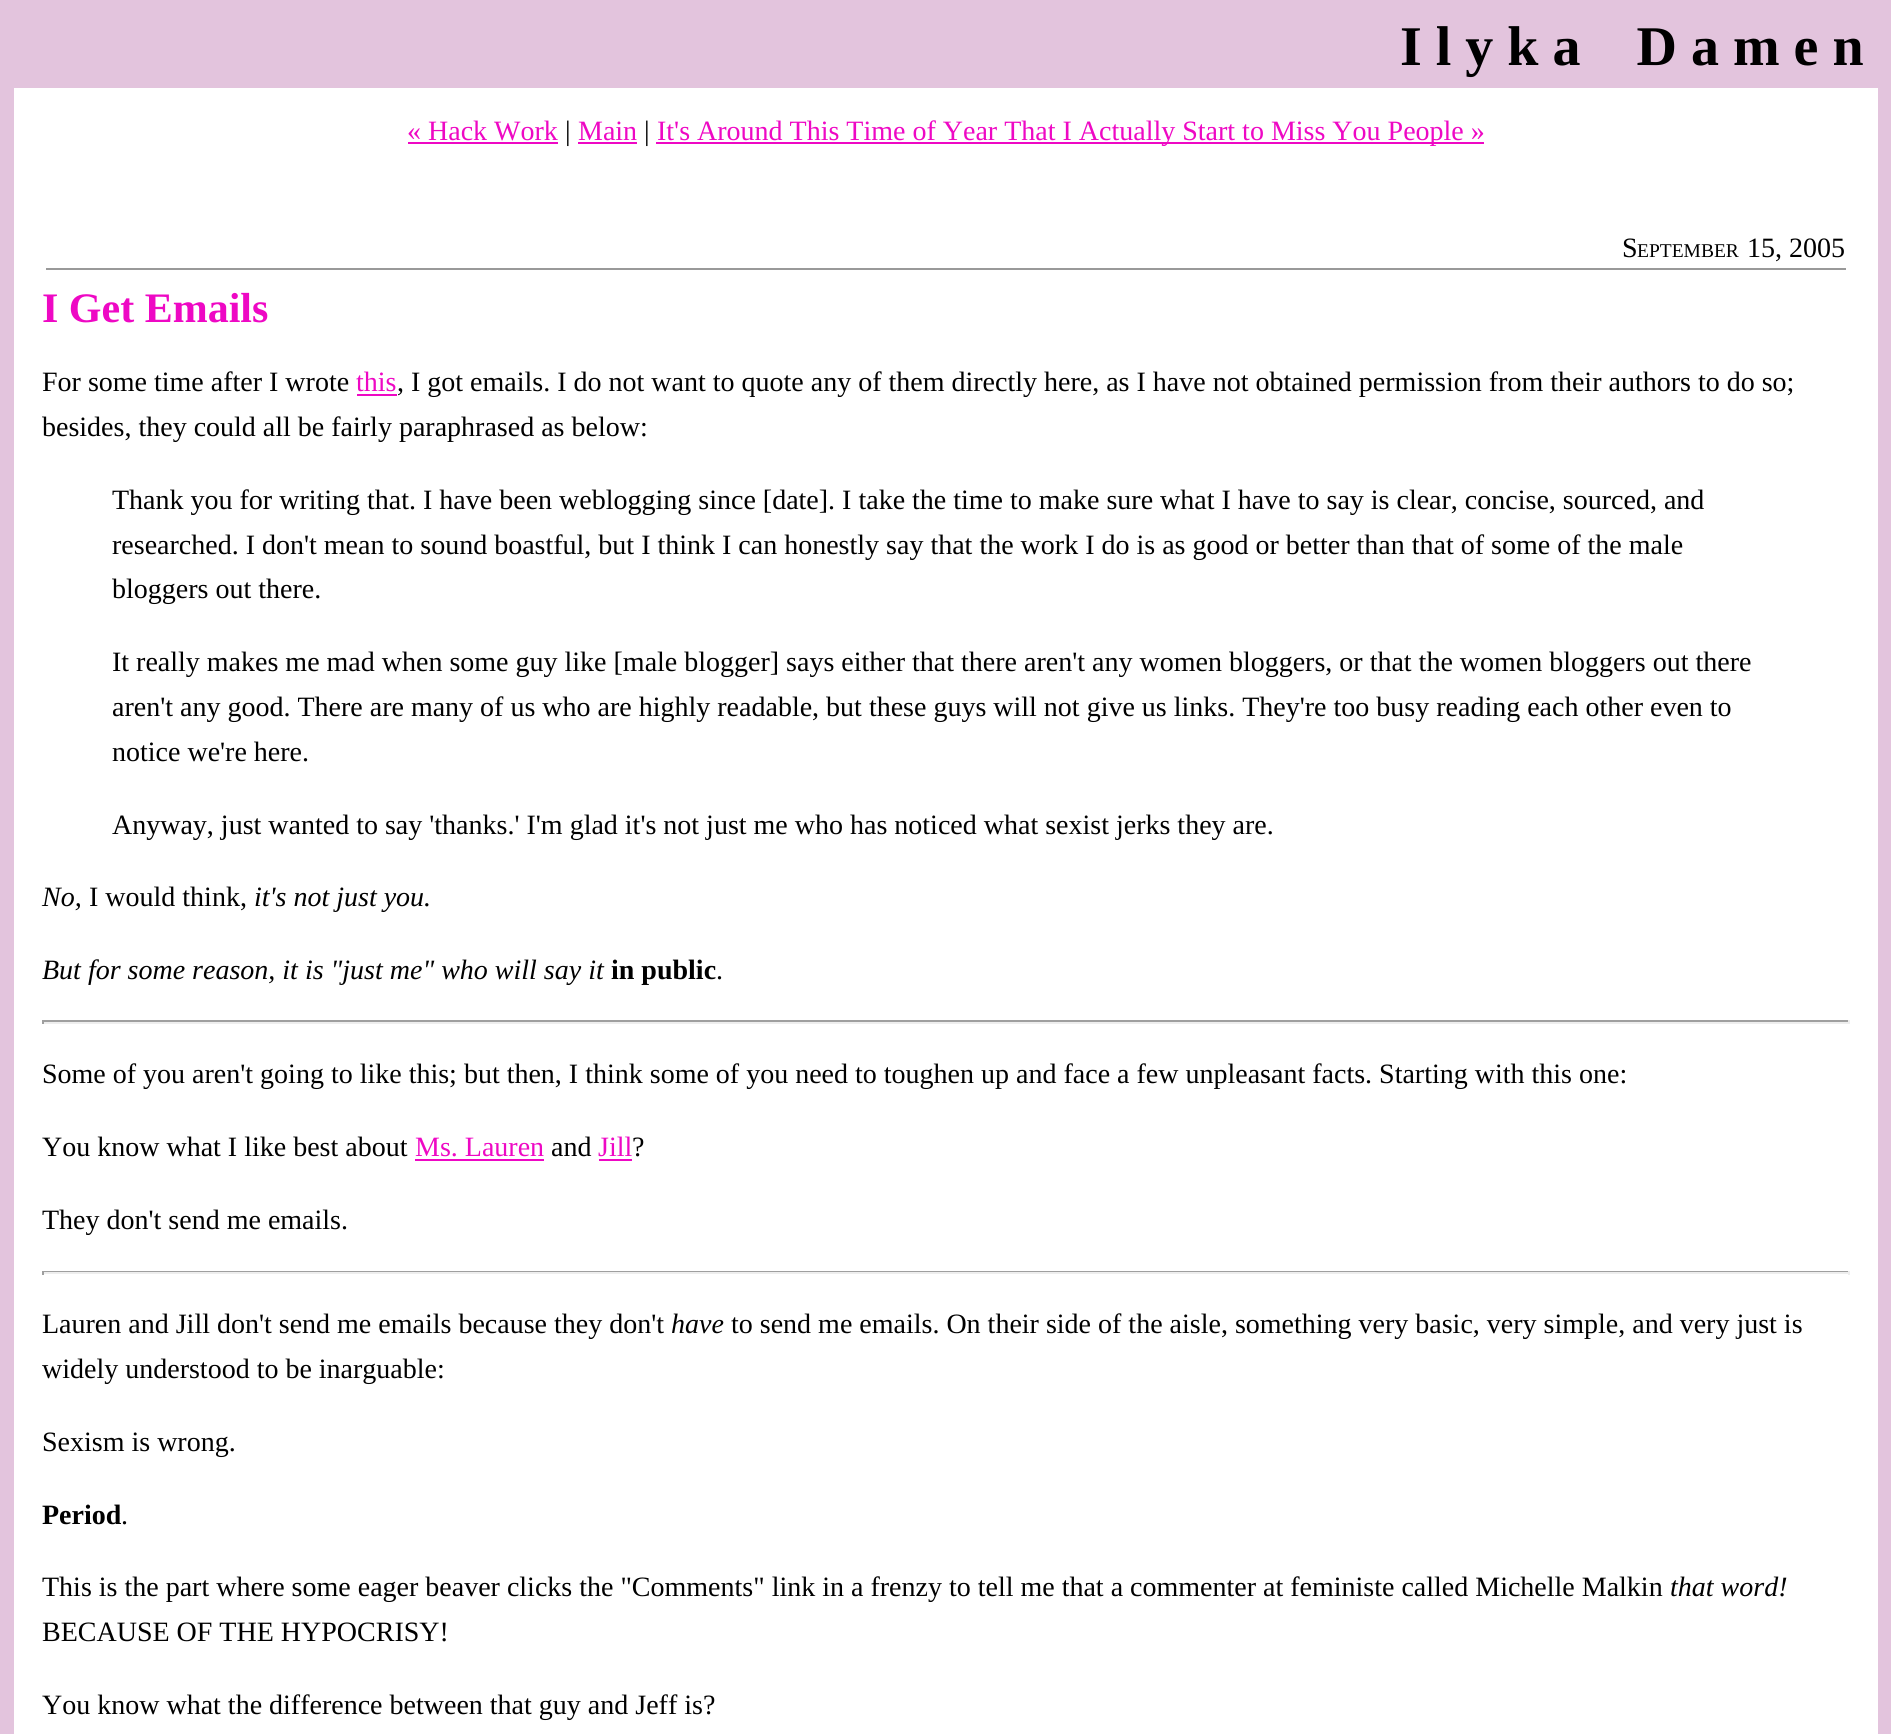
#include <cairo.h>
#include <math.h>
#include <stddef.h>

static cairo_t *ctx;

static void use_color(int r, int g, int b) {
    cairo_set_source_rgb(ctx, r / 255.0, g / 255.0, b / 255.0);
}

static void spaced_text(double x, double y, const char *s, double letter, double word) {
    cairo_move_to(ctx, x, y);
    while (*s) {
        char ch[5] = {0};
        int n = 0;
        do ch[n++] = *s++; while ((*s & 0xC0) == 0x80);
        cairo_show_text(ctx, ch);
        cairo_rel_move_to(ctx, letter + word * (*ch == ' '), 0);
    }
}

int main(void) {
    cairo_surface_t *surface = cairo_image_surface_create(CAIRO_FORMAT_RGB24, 1891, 1734);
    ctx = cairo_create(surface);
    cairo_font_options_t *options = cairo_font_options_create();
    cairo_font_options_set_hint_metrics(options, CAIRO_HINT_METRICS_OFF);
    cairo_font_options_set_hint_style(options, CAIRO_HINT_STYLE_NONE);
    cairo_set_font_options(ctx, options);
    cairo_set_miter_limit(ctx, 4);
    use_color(227, 196, 221);
    cairo_paint(ctx);
    cairo_select_font_face(ctx, "Liberation Serif", CAIRO_FONT_SLANT_NORMAL, CAIRO_FONT_WEIGHT_BOLD);
    cairo_set_font_size(ctx, 56);
    use_color(0, 0, 0);
    spaced_text(1400, 65, "Ilyka Damen", 14, 14);
    use_color(255, 255, 255);
    cairo_rectangle(ctx, 14, 88, 1864, 1646);
    cairo_fill(ctx);
    cairo_select_font_face(ctx, "Liberation Serif", CAIRO_FONT_SLANT_NORMAL, CAIRO_FONT_WEIGHT_NORMAL);
    cairo_set_font_size(ctx, 28);
    use_color(238, 8, 196);
    cairo_move_to(ctx, 407, 140);
    cairo_show_text(ctx, "« Hack Work");
    cairo_rectangle(ctx, 408, 142, 150, 2);
    cairo_fill(ctx);
    use_color(0, 0, 0);
    cairo_move_to(ctx, 565, 140);
    cairo_show_text(ctx, "|");
    use_color(238, 8, 196);
    cairo_move_to(ctx, 578, 140);
    cairo_show_text(ctx, "Main");
    cairo_rectangle(ctx, 578, 142, 59, 2);
    cairo_fill(ctx);
    use_color(0, 0, 0);
    cairo_move_to(ctx, 644, 140);
    cairo_show_text(ctx, "|");
    use_color(238, 8, 196);
    cairo_rectangle(ctx, 656, 142, 828, 2);
    cairo_fill(ctx);
    cairo_move_to(ctx, 657, 140);
    cairo_show_text(ctx, "It's Around This Time of Year That I Actually Start to Miss You People »");
    use_color(153, 153, 153);
    cairo_rectangle(ctx, 46, 268, 1800, 2);
    cairo_fill(ctx);
    use_color(0, 0, 0);
    cairo_move_to(ctx, 1622, 257);
    cairo_show_text(ctx, "S");
    cairo_set_font_size(ctx, 19.5);
    cairo_move_to(ctx, 1637, 257);
    cairo_show_text(ctx, "EPTEMBER");
    cairo_set_font_size(ctx, 28);
    cairo_move_to(ctx, 1747, 257);
    cairo_show_text(ctx, "15, 2005");
    cairo_select_font_face(ctx, "Liberation Serif", CAIRO_FONT_SLANT_NORMAL, CAIRO_FONT_WEIGHT_BOLD);
    cairo_set_font_size(ctx, 42);
    use_color(238, 8, 196);
    cairo_move_to(ctx, 42, 322);
    cairo_show_text(ctx, "I Get Emails");
    cairo_select_font_face(ctx, "Liberation Serif", CAIRO_FONT_SLANT_NORMAL, CAIRO_FONT_WEIGHT_NORMAL);
    cairo_set_font_size(ctx, 28);
    use_color(0, 0, 0);
    cairo_move_to(ctx, 42, 391);
    cairo_show_text(ctx, "For some time after I wrote");
    use_color(238, 8, 196);
    cairo_move_to(ctx, 356, 391);
    cairo_show_text(ctx, "this");
    cairo_rectangle(ctx, 357, 394, 40, 2);
    cairo_fill(ctx);
    use_color(0, 0, 0);
    cairo_move_to(ctx, 397, 391);
    cairo_show_text(ctx, ", I got emails. I do not want to quote any of them directly here, as I have not obtained permission from their authors to do so;");
    cairo_move_to(ctx, 42, 436);
    cairo_show_text(ctx, "besides, they could all be fairly paraphrased as below:");
    cairo_move_to(ctx, 112, 509);
    cairo_show_text(ctx, "Thank you for writing that. I have been weblogging since [date]. I take the time to make sure what I have to say is clear, concise, sourced, and");
    cairo_move_to(ctx, 112, 554);
    cairo_show_text(ctx, "researched. I don't mean to sound boastful, but I think I can honestly say that the work I do is as good or better than that of some of the male");
    cairo_move_to(ctx, 112, 598);
    cairo_show_text(ctx, "bloggers out there.");
    cairo_move_to(ctx, 112, 671);
    cairo_show_text(ctx, "It really makes me mad when some guy like [male blogger] says either that there aren't any women bloggers, or that the women bloggers out there");
    cairo_move_to(ctx, 112, 716);
    cairo_show_text(ctx, "aren't any good. There are many of us who are highly readable, but these guys will not give us links. They're too busy reading each other even to");
    cairo_move_to(ctx, 112, 761);
    cairo_show_text(ctx, "notice we're here.");
    cairo_move_to(ctx, 112, 834);
    cairo_show_text(ctx, "Anyway, just wanted to say 'thanks.' I'm glad it's not just me who has noticed what sexist jerks they are.");
    cairo_select_font_face(ctx, "Liberation Serif", CAIRO_FONT_SLANT_ITALIC, CAIRO_FONT_WEIGHT_NORMAL);
    cairo_move_to(ctx, 42, 906);
    cairo_show_text(ctx, "No,");
    cairo_select_font_face(ctx, "Liberation Serif", CAIRO_FONT_SLANT_NORMAL, CAIRO_FONT_WEIGHT_NORMAL);
    cairo_move_to(ctx, 89, 906);
    cairo_show_text(ctx, "I would think,");
    cairo_select_font_face(ctx, "Liberation Serif", CAIRO_FONT_SLANT_ITALIC, CAIRO_FONT_WEIGHT_NORMAL);
    cairo_move_to(ctx, 254, 906);
    cairo_show_text(ctx, "it's not just you.");
    cairo_move_to(ctx, 42, 979);
    cairo_show_text(ctx, "But for some reason, it is \"just me\" who will say it");
    cairo_select_font_face(ctx, "Liberation Serif", CAIRO_FONT_SLANT_NORMAL, CAIRO_FONT_WEIGHT_BOLD);
    cairo_move_to(ctx, 611, 979);
    cairo_show_text(ctx, "in public");
    cairo_select_font_face(ctx, "Liberation Serif", CAIRO_FONT_SLANT_NORMAL, CAIRO_FONT_WEIGHT_NORMAL);
    cairo_move_to(ctx, 716, 979);
    cairo_show_text(ctx, ".");
    use_color(159, 159, 159);
    cairo_rectangle(ctx, 42, 1020, 1808, 2);
    cairo_fill(ctx);
    use_color(238, 238, 238);
    cairo_rectangle(ctx, 1848, 1020, 2, 4);
    cairo_fill(ctx);
    cairo_rectangle(ctx, 42, 1022, 1808, 2);
    cairo_fill(ctx);
    use_color(159, 159, 159);
    cairo_rectangle(ctx, 42, 1020, 2, 4);
    cairo_fill(ctx);
    use_color(0, 0, 0);
    cairo_move_to(ctx, 42, 1083);
    cairo_show_text(ctx, "Some of you aren't going to like this; but then, I think some of you need to toughen up and face a few unpleasant facts. Starting with this one:");
    cairo_move_to(ctx, 42, 1156);
    cairo_show_text(ctx, "You know what I like best about");
    use_color(238, 8, 196);
    cairo_move_to(ctx, 415, 1156);
    cairo_show_text(ctx, "Ms. Lauren");
    cairo_rectangle(ctx, 415, 1159, 129, 2);
    cairo_fill(ctx);
    use_color(0, 0, 0);
    cairo_move_to(ctx, 551, 1156);
    cairo_show_text(ctx, "and");
    use_color(238, 8, 196);
    cairo_move_to(ctx, 598, 1156);
    cairo_show_text(ctx, "Jill");
    cairo_rectangle(ctx, 599, 1159, 33, 2);
    cairo_fill(ctx);
    use_color(0, 0, 0);
    cairo_move_to(ctx, 632, 1156);
    cairo_show_text(ctx, "?");
    cairo_move_to(ctx, 42, 1229);
    cairo_show_text(ctx, "They don't send me emails.");
    use_color(159, 159, 159);
    cairo_rectangle(ctx, 42, 1271, 1808, 1);
    cairo_fill(ctx);
    use_color(238, 238, 238);
    cairo_rectangle(ctx, 1848, 1271, 2, 4);
    cairo_fill(ctx);
    cairo_rectangle(ctx, 42, 1272, 1808, 2);
    cairo_fill(ctx);
    use_color(159, 159, 159);
    cairo_rectangle(ctx, 42, 1271, 2, 4);
    cairo_fill(ctx);
    use_color(0, 0, 0);
    cairo_move_to(ctx, 42, 1333);
    cairo_show_text(ctx, "Lauren and Jill don't send me emails because they don't");
    cairo_select_font_face(ctx, "Liberation Serif", CAIRO_FONT_SLANT_ITALIC, CAIRO_FONT_WEIGHT_NORMAL);
    cairo_move_to(ctx, 671, 1333);
    cairo_show_text(ctx, "have");
    cairo_select_font_face(ctx, "Liberation Serif", CAIRO_FONT_SLANT_NORMAL, CAIRO_FONT_WEIGHT_NORMAL);
    cairo_move_to(ctx, 731, 1333);
    cairo_show_text(ctx, "to send me emails. On their side of the aisle, something very basic, very simple, and very just is");
    cairo_move_to(ctx, 42, 1378);
    cairo_show_text(ctx, "widely understood to be inarguable:");
    cairo_move_to(ctx, 42, 1451);
    cairo_show_text(ctx, "Sexism is wrong.");
    cairo_select_font_face(ctx, "Liberation Serif", CAIRO_FONT_SLANT_NORMAL, CAIRO_FONT_WEIGHT_BOLD);
    cairo_move_to(ctx, 42, 1524);
    cairo_show_text(ctx, "Period");
    cairo_select_font_face(ctx, "Liberation Serif", CAIRO_FONT_SLANT_NORMAL, CAIRO_FONT_WEIGHT_NORMAL);
    cairo_move_to(ctx, 121, 1524);
    cairo_show_text(ctx, ".");
    cairo_move_to(ctx, 42, 1596);
    cairo_show_text(ctx, "This is the part where some eager beaver clicks the \"Comments\" link in a frenzy to tell me that a commenter at feministe called Michelle Malkin");
    cairo_select_font_face(ctx, "Liberation Serif", CAIRO_FONT_SLANT_ITALIC, CAIRO_FONT_WEIGHT_NORMAL);
    cairo_move_to(ctx, 1670, 1596);
    cairo_show_text(ctx, "that word!");
    cairo_select_font_face(ctx, "Liberation Serif", CAIRO_FONT_SLANT_NORMAL, CAIRO_FONT_WEIGHT_NORMAL);
    cairo_move_to(ctx, 42, 1641);
    cairo_show_text(ctx, "BECAUSE OF THE HYPOCRISY!");
    cairo_move_to(ctx, 42, 1714);
    cairo_show_text(ctx, "You know what the difference between that guy and Jeff is?");
    cairo_surface_write_to_png(surface, "result.png");
    cairo_font_options_destroy(options);
    cairo_destroy(ctx);
    cairo_surface_destroy(surface);
    return 0;
}
